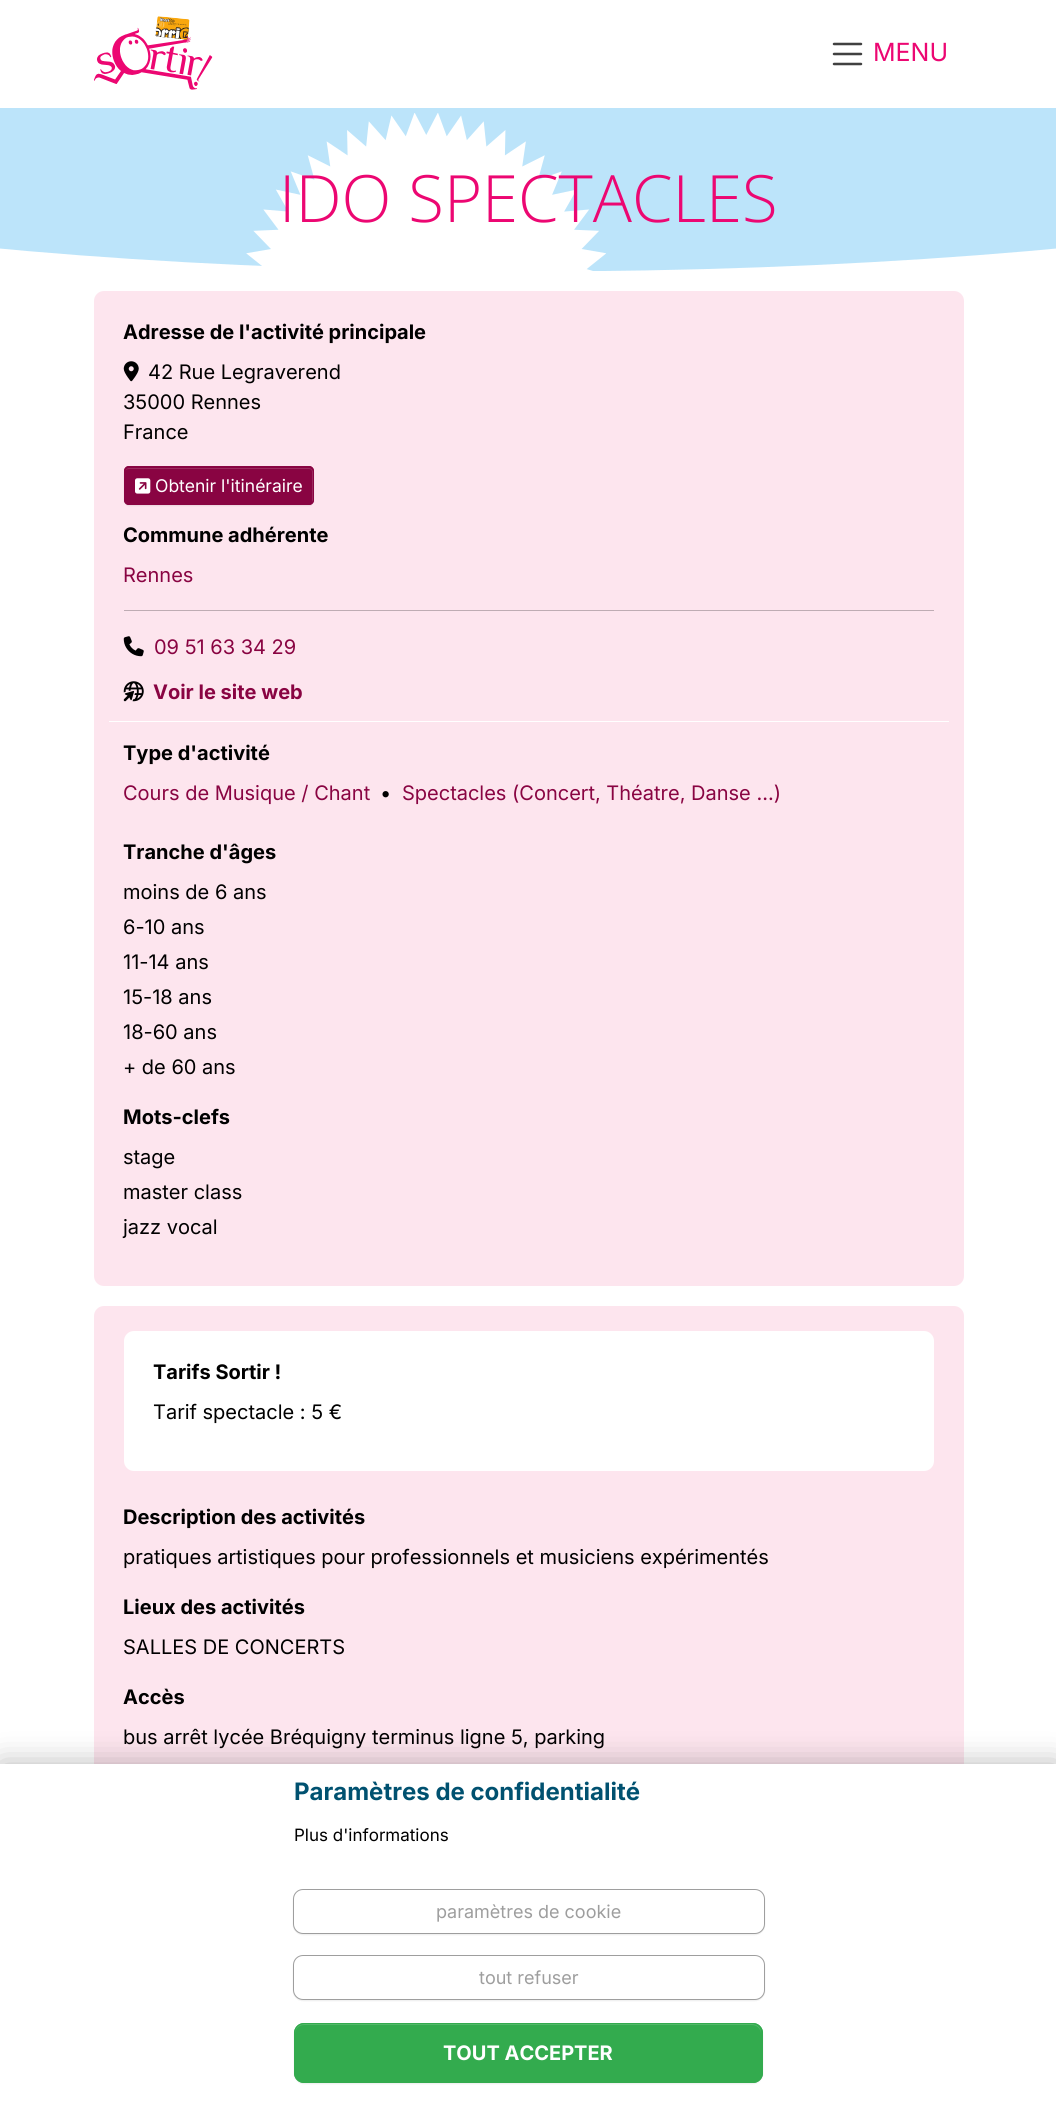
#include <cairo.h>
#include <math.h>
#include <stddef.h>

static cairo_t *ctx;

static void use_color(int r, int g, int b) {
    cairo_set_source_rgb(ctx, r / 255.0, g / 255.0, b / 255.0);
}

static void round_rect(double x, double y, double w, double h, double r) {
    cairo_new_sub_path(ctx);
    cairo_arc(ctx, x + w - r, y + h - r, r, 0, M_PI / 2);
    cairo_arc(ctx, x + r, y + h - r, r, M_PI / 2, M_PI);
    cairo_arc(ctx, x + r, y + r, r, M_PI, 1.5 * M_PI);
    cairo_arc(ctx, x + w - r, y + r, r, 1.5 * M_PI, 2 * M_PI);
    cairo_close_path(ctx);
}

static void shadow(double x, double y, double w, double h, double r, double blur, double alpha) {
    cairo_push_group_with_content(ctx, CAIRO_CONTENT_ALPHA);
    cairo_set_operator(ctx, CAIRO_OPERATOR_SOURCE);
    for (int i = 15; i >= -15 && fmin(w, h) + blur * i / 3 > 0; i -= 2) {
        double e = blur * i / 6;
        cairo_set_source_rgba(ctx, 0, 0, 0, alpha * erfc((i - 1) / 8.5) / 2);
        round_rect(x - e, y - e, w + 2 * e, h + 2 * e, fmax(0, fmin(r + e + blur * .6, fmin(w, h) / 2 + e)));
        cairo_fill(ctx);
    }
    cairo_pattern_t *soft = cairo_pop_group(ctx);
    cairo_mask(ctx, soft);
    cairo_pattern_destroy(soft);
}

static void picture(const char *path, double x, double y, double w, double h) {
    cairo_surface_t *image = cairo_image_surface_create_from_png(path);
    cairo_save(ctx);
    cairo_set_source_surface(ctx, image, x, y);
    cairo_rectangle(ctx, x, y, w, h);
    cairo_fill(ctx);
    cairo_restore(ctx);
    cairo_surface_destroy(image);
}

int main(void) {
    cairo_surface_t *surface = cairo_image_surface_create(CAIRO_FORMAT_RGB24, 1056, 2105);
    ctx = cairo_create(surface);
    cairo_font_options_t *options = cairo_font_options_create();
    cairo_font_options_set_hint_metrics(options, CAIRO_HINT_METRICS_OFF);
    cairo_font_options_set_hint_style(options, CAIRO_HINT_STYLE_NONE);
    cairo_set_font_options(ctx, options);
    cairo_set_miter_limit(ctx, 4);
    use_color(255, 255, 255);
    cairo_paint(ctx);
    picture("img1.png", 94, 16, 119, 74);
    cairo_new_path(ctx);
    cairo_move_to(ctx, 834, 44);
    cairo_line_to(ctx, 861, 44);
    cairo_move_to(ctx, 834, 54);
    cairo_line_to(ctx, 861, 54);
    cairo_move_to(ctx, 834, 64);
    cairo_line_to(ctx, 861, 64);
    use_color(64, 64, 64);
    cairo_set_line_width(ctx, 2.5);
    cairo_set_line_cap(ctx, CAIRO_LINE_CAP_ROUND);
    cairo_stroke(ctx);
    cairo_select_font_face(ctx, "Inter", CAIRO_FONT_SLANT_NORMAL, CAIRO_FONT_WEIGHT_NORMAL);
    cairo_set_font_size(ctx, 25);
    use_color(236, 7, 114);
    cairo_move_to(ctx, 873, 61);
    cairo_show_text(ctx, "MENU");
    cairo_save(ctx);
    cairo_rectangle(ctx, 0, 108, 1056, 163);
    cairo_clip(ctx);
    use_color(188, 228, 250);
    cairo_new_path(ctx);
    cairo_move_to(ctx, 528, -142.5);
    cairo_curve_to(ctx, 1165, -142.5, 1681, -50, 1681, 64.5);
    cairo_curve_to(ctx, 1681, 179, 1165, 271.5, 528, 271.5);
    cairo_curve_to(ctx, -109, 271.5, -625, 179, -625, 64.5);
    cairo_curve_to(ctx, -625, -50, -109, -142.5, 528, -142.5);
    cairo_close_path(ctx);
    cairo_fill(ctx);
    cairo_restore(ctx);
    picture("img2.png", 246, 113, 360, 158);
    cairo_select_font_face(ctx, "Open Sans Light", CAIRO_FONT_SLANT_NORMAL, CAIRO_FONT_WEIGHT_NORMAL);
    cairo_set_font_size(ctx, 65.25);
    cairo_move_to(ctx, 279, 222);
    cairo_show_text(ctx, "IDO SPECTACLES");
    use_color(253, 229, 238);
    round_rect(94, 291, 870, 995, 10);
    cairo_fill(ctx);
    use_color(255, 255, 255);
    cairo_rectangle(ctx, 109, 721, 840, 1);
    cairo_fill(ctx);
    cairo_select_font_face(ctx, "Inter", CAIRO_FONT_SLANT_NORMAL, CAIRO_FONT_WEIGHT_BOLD);
    cairo_set_font_size(ctx, 20);
    use_color(0, 0, 0);
    cairo_move_to(ctx, 123, 339);
    cairo_show_text(ctx, "Adresse de l'activité principale");
    picture("img3.png", 123, 361, 16, 21);
    cairo_select_font_face(ctx, "Inter", CAIRO_FONT_SLANT_NORMAL, CAIRO_FONT_WEIGHT_NORMAL);
    cairo_move_to(ctx, 148, 379);
    cairo_show_text(ctx, "42 Rue Legraverend");
    cairo_move_to(ctx, 123, 409);
    cairo_show_text(ctx, "35000 Rennes");
    cairo_move_to(ctx, 123, 439);
    cairo_show_text(ctx, "France");
    use_color(0, 0, 0);
    shadow(124, 468, 190, 38, 5, 0.5, 0.07);
    use_color(137, 4, 66);
    round_rect(124, 466, 190, 39, 5);
    cairo_fill(ctx);
    use_color(155, 42, 94);
    cairo_new_path(ctx);
    cairo_move_to(ctx, 129, 469);
    cairo_line_to(ctx, 309, 469);
    cairo_curve_to(ctx, 311, 469, 312, 470, 312, 472);
    cairo_line_to(ctx, 312, 503);
    cairo_curve_to(ctx, 312, 502, 313, 501, 313, 500);
    cairo_line_to(ctx, 313, 472);
    cairo_curve_to(ctx, 313, 470, 311, 468, 309, 468);
    cairo_line_to(ctx, 129, 468);
    cairo_curve_to(ctx, 127, 468, 125, 470, 125, 472);
    cairo_curve_to(ctx, 125, 470, 127, 469, 129, 469);
    cairo_close_path(ctx);
    cairo_fill(ctx);
    round_rect(124.5, 466.5, 189, 38, 4.5);
    use_color(137, 4, 66);
    cairo_set_line_width(ctx, 1);
    cairo_set_line_cap(ctx, CAIRO_LINE_CAP_BUTT);
    cairo_stroke(ctx);
    picture("img4.png", 135, 478, 16, 16);
    cairo_set_font_size(ctx, 17.5);
    use_color(255, 255, 255);
    cairo_move_to(ctx, 155, 492);
    cairo_show_text(ctx, "Obtenir l'itinéraire");
    cairo_select_font_face(ctx, "Inter", CAIRO_FONT_SLANT_NORMAL, CAIRO_FONT_WEIGHT_BOLD);
    cairo_set_font_size(ctx, 20);
    use_color(0, 0, 0);
    cairo_move_to(ctx, 123, 542);
    cairo_show_text(ctx, "Commune adhérente");
    cairo_select_font_face(ctx, "Inter", CAIRO_FONT_SLANT_NORMAL, CAIRO_FONT_WEIGHT_NORMAL);
    use_color(137, 4, 66);
    cairo_move_to(ctx, 123, 582);
    cairo_show_text(ctx, "Rennes");
    use_color(190, 172, 179);
    cairo_rectangle(ctx, 124, 610, 810, 1);
    cairo_fill(ctx);
    picture("img5.png", 123, 636, 21, 21);
    use_color(137, 4, 66);
    cairo_move_to(ctx, 154, 654);
    cairo_show_text(ctx, "09 51 63 34 29");
    picture("img6.png", 123, 681, 21, 21);
    cairo_select_font_face(ctx, "Inter", CAIRO_FONT_SLANT_NORMAL, CAIRO_FONT_WEIGHT_BOLD);
    cairo_move_to(ctx, 153, 699);
    cairo_show_text(ctx, "Voir le site web");
    use_color(0, 0, 0);
    cairo_move_to(ctx, 123, 760);
    cairo_show_text(ctx, "Type d'activité");
    cairo_select_font_face(ctx, "Inter", CAIRO_FONT_SLANT_NORMAL, CAIRO_FONT_WEIGHT_NORMAL);
    use_color(137, 4, 66);
    cairo_move_to(ctx, 123, 800);
    cairo_show_text(ctx, "Cours de Musique / Chant");
    use_color(0, 0, 0);
    cairo_move_to(ctx, 380, 800);
    cairo_show_text(ctx, "•");
    use_color(137, 4, 66);
    cairo_move_to(ctx, 402, 800);
    cairo_show_text(ctx, "Spectacles (Concert, Théatre, Danse ...)");
    cairo_select_font_face(ctx, "Inter", CAIRO_FONT_SLANT_NORMAL, CAIRO_FONT_WEIGHT_BOLD);
    use_color(0, 0, 0);
    cairo_move_to(ctx, 123, 859);
    cairo_show_text(ctx, "Tranche d'âges");
    cairo_select_font_face(ctx, "Inter", CAIRO_FONT_SLANT_NORMAL, CAIRO_FONT_WEIGHT_NORMAL);
    cairo_move_to(ctx, 123, 899);
    cairo_show_text(ctx, "moins de 6 ans");
    cairo_move_to(ctx, 123, 934);
    cairo_show_text(ctx, "6-10 ans");
    cairo_move_to(ctx, 123, 969);
    cairo_show_text(ctx, "11-14 ans");
    cairo_move_to(ctx, 123, 1004);
    cairo_show_text(ctx, "15-18 ans");
    cairo_move_to(ctx, 123, 1039);
    cairo_show_text(ctx, "18-60 ans");
    cairo_move_to(ctx, 123, 1074);
    cairo_show_text(ctx, "+ de 60 ans");
    cairo_select_font_face(ctx, "Inter", CAIRO_FONT_SLANT_NORMAL, CAIRO_FONT_WEIGHT_BOLD);
    cairo_move_to(ctx, 123, 1124);
    cairo_show_text(ctx, "Mots-clefs");
    cairo_select_font_face(ctx, "Inter", CAIRO_FONT_SLANT_NORMAL, CAIRO_FONT_WEIGHT_NORMAL);
    cairo_move_to(ctx, 123, 1164);
    cairo_show_text(ctx, "stage");
    cairo_move_to(ctx, 123, 1199);
    cairo_show_text(ctx, "master class");
    cairo_move_to(ctx, 123, 1234);
    cairo_show_text(ctx, "jazz vocal");
    use_color(253, 229, 238);
    round_rect(94, 1306, 870, 490, 10);
    cairo_fill(ctx);
    use_color(255, 255, 255);
    round_rect(124, 1331, 810, 140, 10);
    cairo_fill(ctx);
    cairo_select_font_face(ctx, "Inter", CAIRO_FONT_SLANT_NORMAL, CAIRO_FONT_WEIGHT_BOLD);
    use_color(0, 0, 0);
    cairo_move_to(ctx, 153, 1379);
    cairo_show_text(ctx, "Tarifs Sortir !");
    cairo_select_font_face(ctx, "Inter", CAIRO_FONT_SLANT_NORMAL, CAIRO_FONT_WEIGHT_NORMAL);
    cairo_move_to(ctx, 153, 1419);
    cairo_show_text(ctx, "Tarif spectacle : 5 €");
    cairo_select_font_face(ctx, "Inter", CAIRO_FONT_SLANT_NORMAL, CAIRO_FONT_WEIGHT_BOLD);
    cairo_move_to(ctx, 123, 1524);
    cairo_show_text(ctx, "Description des activités");
    cairo_select_font_face(ctx, "Inter", CAIRO_FONT_SLANT_NORMAL, CAIRO_FONT_WEIGHT_NORMAL);
    cairo_move_to(ctx, 123, 1564);
    cairo_show_text(ctx, "pratiques artistiques pour professionnels et musiciens expérimentés");
    cairo_select_font_face(ctx, "Inter", CAIRO_FONT_SLANT_NORMAL, CAIRO_FONT_WEIGHT_BOLD);
    cairo_move_to(ctx, 123, 1614);
    cairo_show_text(ctx, "Lieux des activités");
    cairo_select_font_face(ctx, "Inter", CAIRO_FONT_SLANT_NORMAL, CAIRO_FONT_WEIGHT_NORMAL);
    cairo_move_to(ctx, 123, 1654);
    cairo_show_text(ctx, "SALLES DE CONCERTS");
    cairo_select_font_face(ctx, "Inter", CAIRO_FONT_SLANT_NORMAL, CAIRO_FONT_WEIGHT_BOLD);
    cairo_move_to(ctx, 123, 1704);
    cairo_show_text(ctx, "Accès");
    cairo_select_font_face(ctx, "Inter", CAIRO_FONT_SLANT_NORMAL, CAIRO_FONT_WEIGHT_NORMAL);
    cairo_move_to(ctx, 123, 1744);
    cairo_show_text(ctx, "bus arrêt lycée Bréquigny terminus ligne 5, parking");
    use_color(0, 0, 0);
    shadow(1, 1765, 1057, 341, 0, 15.5, 0.3);
    use_color(255, 255, 255);
    cairo_rectangle(ctx, 0, 1764, 1056, 341);
    cairo_fill(ctx);
    cairo_select_font_face(ctx, "Inter", CAIRO_FONT_SLANT_NORMAL, CAIRO_FONT_WEIGHT_BOLD);
    cairo_set_font_size(ctx, 24);
    use_color(0, 81, 112);
    cairo_move_to(ctx, 294, 1800);
    cairo_show_text(ctx, "Paramètres de confidentialité");
    cairo_select_font_face(ctx, "Inter", CAIRO_FONT_SLANT_NORMAL, CAIRO_FONT_WEIGHT_NORMAL);
    cairo_set_font_size(ctx, 17);
    use_color(0, 0, 0);
    cairo_move_to(ctx, 294, 1841);
    cairo_show_text(ctx, "Plus d'informations");
    use_color(13, 13, 13);
    shadow(293, 1890, 472, 45, 10, 0.5, 0.07);
    use_color(255, 255, 255);
    round_rect(293.5, 1889.5, 471, 44, 9.5);
    cairo_fill_preserve(ctx);
    use_color(158, 158, 158);
    cairo_stroke(ctx);
    cairo_set_font_size(ctx, 18);
    cairo_move_to(ctx, 436, 1918);
    cairo_show_text(ctx, "paramètres de cookie");
    use_color(13, 13, 13);
    shadow(293, 1956, 472, 45, 10, 0.5, 0.07);
    use_color(255, 255, 255);
    round_rect(293.5, 1955.5, 471, 44, 9.5);
    cairo_fill_preserve(ctx);
    use_color(158, 158, 158);
    cairo_stroke(ctx);
    cairo_move_to(ctx, 479, 1984);
    cairo_show_text(ctx, "tout refuser");
    use_color(13, 13, 13);
    shadow(294, 2024, 469, 60, 10, 0.5, 0.07);
    use_color(51, 171, 78);
    round_rect(294, 2023, 469, 60, 10);
    cairo_fill(ctx);
    use_color(82, 184, 105);
    cairo_new_path(ctx);
    cairo_move_to(ctx, 304, 2025);
    cairo_line_to(ctx, 752, 2025);
    cairo_curve_to(ctx, 757, 2025, 761, 2029, 761, 2034);
    cairo_line_to(ctx, 761, 2033);
    cairo_curve_to(ctx, 761, 2028, 757, 2024, 752, 2024);
    cairo_line_to(ctx, 304, 2024);
    cairo_curve_to(ctx, 299, 2024, 295, 2028, 295, 2033);
    cairo_line_to(ctx, 295, 2034);
    cairo_curve_to(ctx, 295, 2029, 299, 2025, 304, 2025);
    cairo_close_path(ctx);
    cairo_fill(ctx);
    round_rect(294.5, 2023.5, 468, 59, 9.5);
    use_color(51, 171, 78);
    cairo_stroke(ctx);
    cairo_select_font_face(ctx, "Inter", CAIRO_FONT_SLANT_NORMAL, CAIRO_FONT_WEIGHT_BOLD);
    cairo_set_font_size(ctx, 20);
    use_color(255, 255, 255);
    cairo_move_to(ctx, 443, 2060);
    cairo_show_text(ctx, "TOUT ACCEPTER");
    cairo_surface_write_to_png(surface, "result.png");
    cairo_font_options_destroy(options);
    cairo_destroy(ctx);
    cairo_surface_destroy(surface);
    return 0;
}
